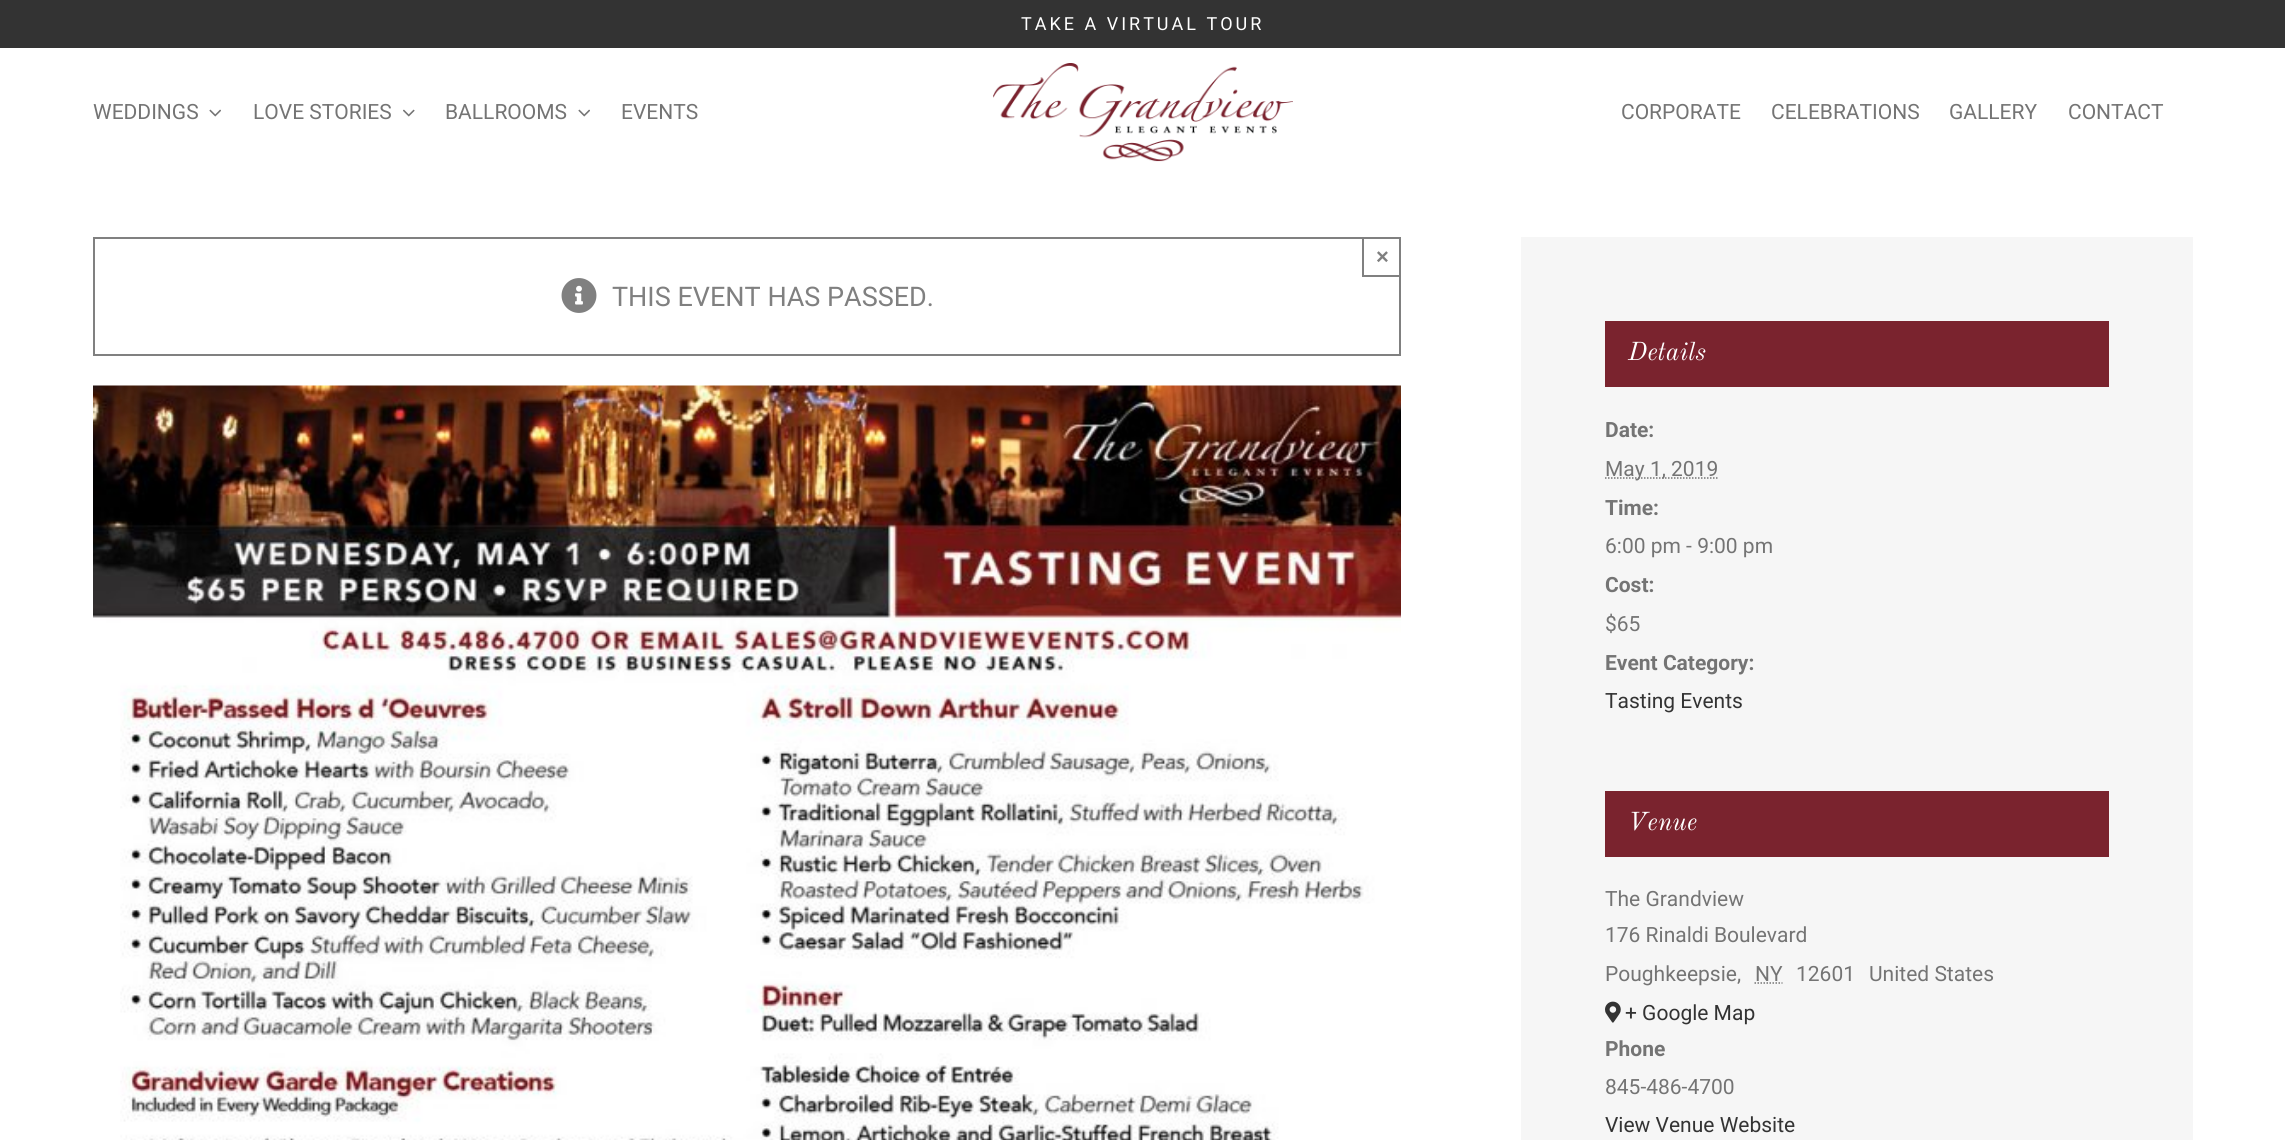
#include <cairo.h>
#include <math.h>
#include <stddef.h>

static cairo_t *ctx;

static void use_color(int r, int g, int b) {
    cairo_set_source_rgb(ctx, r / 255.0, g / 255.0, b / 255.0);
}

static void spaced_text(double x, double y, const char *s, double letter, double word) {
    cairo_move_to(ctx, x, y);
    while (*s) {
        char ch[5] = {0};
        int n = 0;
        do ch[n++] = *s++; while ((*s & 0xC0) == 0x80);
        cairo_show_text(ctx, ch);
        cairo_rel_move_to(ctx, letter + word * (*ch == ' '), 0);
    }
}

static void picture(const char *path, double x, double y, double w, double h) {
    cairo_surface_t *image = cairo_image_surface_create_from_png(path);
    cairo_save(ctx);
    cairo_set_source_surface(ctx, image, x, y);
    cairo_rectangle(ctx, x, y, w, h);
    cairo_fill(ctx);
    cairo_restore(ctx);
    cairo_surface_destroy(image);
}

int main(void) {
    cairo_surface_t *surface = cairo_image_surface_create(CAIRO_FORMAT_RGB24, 2285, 1140);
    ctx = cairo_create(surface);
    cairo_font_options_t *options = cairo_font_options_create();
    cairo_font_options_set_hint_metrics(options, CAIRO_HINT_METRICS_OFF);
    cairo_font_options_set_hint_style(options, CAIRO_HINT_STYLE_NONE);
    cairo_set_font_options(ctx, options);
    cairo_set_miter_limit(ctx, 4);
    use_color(255, 255, 255);
    cairo_paint(ctx);
    use_color(51, 51, 51);
    cairo_rectangle(ctx, 0, 0, 2285, 48);
    cairo_fill(ctx);
    cairo_select_font_face(ctx, "Roboto", CAIRO_FONT_SLANT_NORMAL, CAIRO_FONT_WEIGHT_NORMAL);
    cairo_set_font_size(ctx, 18);
    use_color(255, 255, 255);
    spaced_text(1021, 30, "TAKE A VIRTUAL TOUR", 3, 0);
    cairo_set_font_size(ctx, 21);
    use_color(116, 116, 116);
    cairo_move_to(ctx, 93, 119);
    cairo_show_text(ctx, "WEDDINGS");
    picture("img1.png", 209, 109, 12, 8);
    cairo_move_to(ctx, 253, 119);
    cairo_show_text(ctx, "LOVE STORIES");
    picture("img2.png", 403, 109, 12, 8);
    cairo_move_to(ctx, 445, 119);
    cairo_show_text(ctx, "BALLROOMS");
    picture("img1.png", 578, 109, 12, 8);
    cairo_move_to(ctx, 621, 119);
    cairo_show_text(ctx, "EVENTS");
    picture("img3.png", 993, 63, 300, 99);
    cairo_move_to(ctx, 1621, 119);
    cairo_show_text(ctx, "CORPORATE");
    cairo_move_to(ctx, 1771, 119);
    cairo_show_text(ctx, "CELEBRATIONS");
    cairo_move_to(ctx, 1949, 119);
    cairo_show_text(ctx, "GALLERY");
    cairo_move_to(ctx, 2068, 119);
    cairo_show_text(ctx, "CONTACT");
    cairo_rectangle(ctx, 94, 238, 1306, 117);
    use_color(128, 128, 128);
    cairo_stroke(ctx);
    cairo_rectangle(ctx, 1362, 275, 39, 2);
    cairo_fill(ctx);
    cairo_rectangle(ctx, 1362, 237, 2, 39);
    cairo_fill(ctx);
    cairo_select_font_face(ctx, "Liberation Sans", CAIRO_FONT_SLANT_NORMAL, CAIRO_FONT_WEIGHT_BOLD);
    cairo_set_font_size(ctx, 22);
    cairo_move_to(ctx, 1376, 264);
    cairo_show_text(ctx, "×");
    picture("img4.png", 561, 278, 36, 35);
    cairo_select_font_face(ctx, "Roboto", CAIRO_FONT_SLANT_NORMAL, CAIRO_FONT_WEIGHT_NORMAL);
    cairo_set_font_size(ctx, 27);
    cairo_move_to(ctx, 612, 306);
    cairo_show_text(ctx, "THIS EVENT HAS PASSED.");
    picture("img5.png", 93, 385, 1308, 755);
    use_color(246, 246, 246);
    cairo_rectangle(ctx, 1521, 237, 672, 903);
    cairo_fill(ctx);
    use_color(122, 35, 46);
    cairo_rectangle(ctx, 1605, 321, 504, 66);
    cairo_fill(ctx);
    cairo_select_font_face(ctx, "Old Standard TT", CAIRO_FONT_SLANT_ITALIC, CAIRO_FONT_WEIGHT_NORMAL);
    cairo_set_font_size(ctx, 25.5);
    use_color(255, 255, 255);
    cairo_move_to(ctx, 1628, 360);
    cairo_show_text(ctx, "Details");
    cairo_select_font_face(ctx, "Roboto", CAIRO_FONT_SLANT_NORMAL, CAIRO_FONT_WEIGHT_BOLD);
    cairo_set_font_size(ctx, 21);
    use_color(116, 116, 116);
    cairo_move_to(ctx, 1605, 437);
    cairo_show_text(ctx, "Date:");
    cairo_new_path(ctx);
    cairo_move_to(ctx, 1605, 478);
    cairo_line_to(ctx, 1718.5, 478);
    cairo_set_line_width(ctx, 1.5);
    cairo_set_dash(ctx, (double[]){1.5, 1.5}, 2, 0);
    cairo_stroke(ctx);
    cairo_select_font_face(ctx, "Roboto", CAIRO_FONT_SLANT_NORMAL, CAIRO_FONT_WEIGHT_NORMAL);
    cairo_move_to(ctx, 1605, 476);
    cairo_show_text(ctx, "May 1, 2019");
    cairo_select_font_face(ctx, "Roboto", CAIRO_FONT_SLANT_NORMAL, CAIRO_FONT_WEIGHT_BOLD);
    cairo_move_to(ctx, 1605, 515);
    cairo_show_text(ctx, "Time:");
    cairo_select_font_face(ctx, "Roboto", CAIRO_FONT_SLANT_NORMAL, CAIRO_FONT_WEIGHT_NORMAL);
    cairo_move_to(ctx, 1605, 553);
    cairo_show_text(ctx, "6:00 pm - 9:00 pm");
    cairo_select_font_face(ctx, "Roboto", CAIRO_FONT_SLANT_NORMAL, CAIRO_FONT_WEIGHT_BOLD);
    cairo_move_to(ctx, 1605, 592);
    cairo_show_text(ctx, "Cost:");
    cairo_select_font_face(ctx, "Roboto", CAIRO_FONT_SLANT_NORMAL, CAIRO_FONT_WEIGHT_NORMAL);
    cairo_move_to(ctx, 1605, 631);
    cairo_show_text(ctx, "$65");
    cairo_select_font_face(ctx, "Roboto", CAIRO_FONT_SLANT_NORMAL, CAIRO_FONT_WEIGHT_BOLD);
    cairo_move_to(ctx, 1605, 670);
    cairo_show_text(ctx, "Event Category:");
    cairo_select_font_face(ctx, "Roboto", CAIRO_FONT_SLANT_NORMAL, CAIRO_FONT_WEIGHT_NORMAL);
    use_color(51, 51, 51);
    cairo_move_to(ctx, 1605, 708);
    cairo_show_text(ctx, "Tasting Events");
    use_color(122, 35, 46);
    cairo_rectangle(ctx, 1605, 791, 504, 66);
    cairo_fill(ctx);
    cairo_select_font_face(ctx, "Old Standard TT", CAIRO_FONT_SLANT_ITALIC, CAIRO_FONT_WEIGHT_NORMAL);
    cairo_set_font_size(ctx, 25.5);
    use_color(255, 255, 255);
    cairo_move_to(ctx, 1628, 830);
    cairo_show_text(ctx, "Venue");
    cairo_select_font_face(ctx, "Roboto", CAIRO_FONT_SLANT_NORMAL, CAIRO_FONT_WEIGHT_NORMAL);
    cairo_set_font_size(ctx, 21);
    use_color(116, 116, 116);
    cairo_move_to(ctx, 1605, 906);
    cairo_show_text(ctx, "The Grandview");
    cairo_move_to(ctx, 1605, 942);
    cairo_show_text(ctx, "176 Rinaldi Boulevard");
    cairo_move_to(ctx, 1605, 981);
    cairo_show_text(ctx, "Poughkeepsie,");
    cairo_move_to(ctx, 1755, 981);
    cairo_show_text(ctx, "NY");
    cairo_new_path(ctx);
    cairo_move_to(ctx, 1754.5, 983);
    cairo_line_to(ctx, 1782.5, 983);
    cairo_stroke(ctx);
    cairo_move_to(ctx, 1796, 981);
    cairo_show_text(ctx, "12601");
    cairo_move_to(ctx, 1869, 981);
    cairo_show_text(ctx, "United States");
    picture("img6.png", 1605, 1001, 16, 22);
    use_color(51, 51, 51);
    cairo_move_to(ctx, 1625, 1020);
    cairo_show_text(ctx, "+ Google Map");
    cairo_select_font_face(ctx, "Roboto", CAIRO_FONT_SLANT_NORMAL, CAIRO_FONT_WEIGHT_BOLD);
    use_color(116, 116, 116);
    cairo_move_to(ctx, 1605, 1056);
    cairo_show_text(ctx, "Phone");
    cairo_select_font_face(ctx, "Roboto", CAIRO_FONT_SLANT_NORMAL, CAIRO_FONT_WEIGHT_NORMAL);
    cairo_move_to(ctx, 1605, 1094);
    cairo_show_text(ctx, "845-486-4700");
    use_color(51, 51, 51);
    cairo_move_to(ctx, 1605, 1132);
    cairo_show_text(ctx, "View Venue Website");
    cairo_surface_write_to_png(surface, "result.png");
    cairo_font_options_destroy(options);
    cairo_destroy(ctx);
    cairo_surface_destroy(surface);
    return 0;
}
